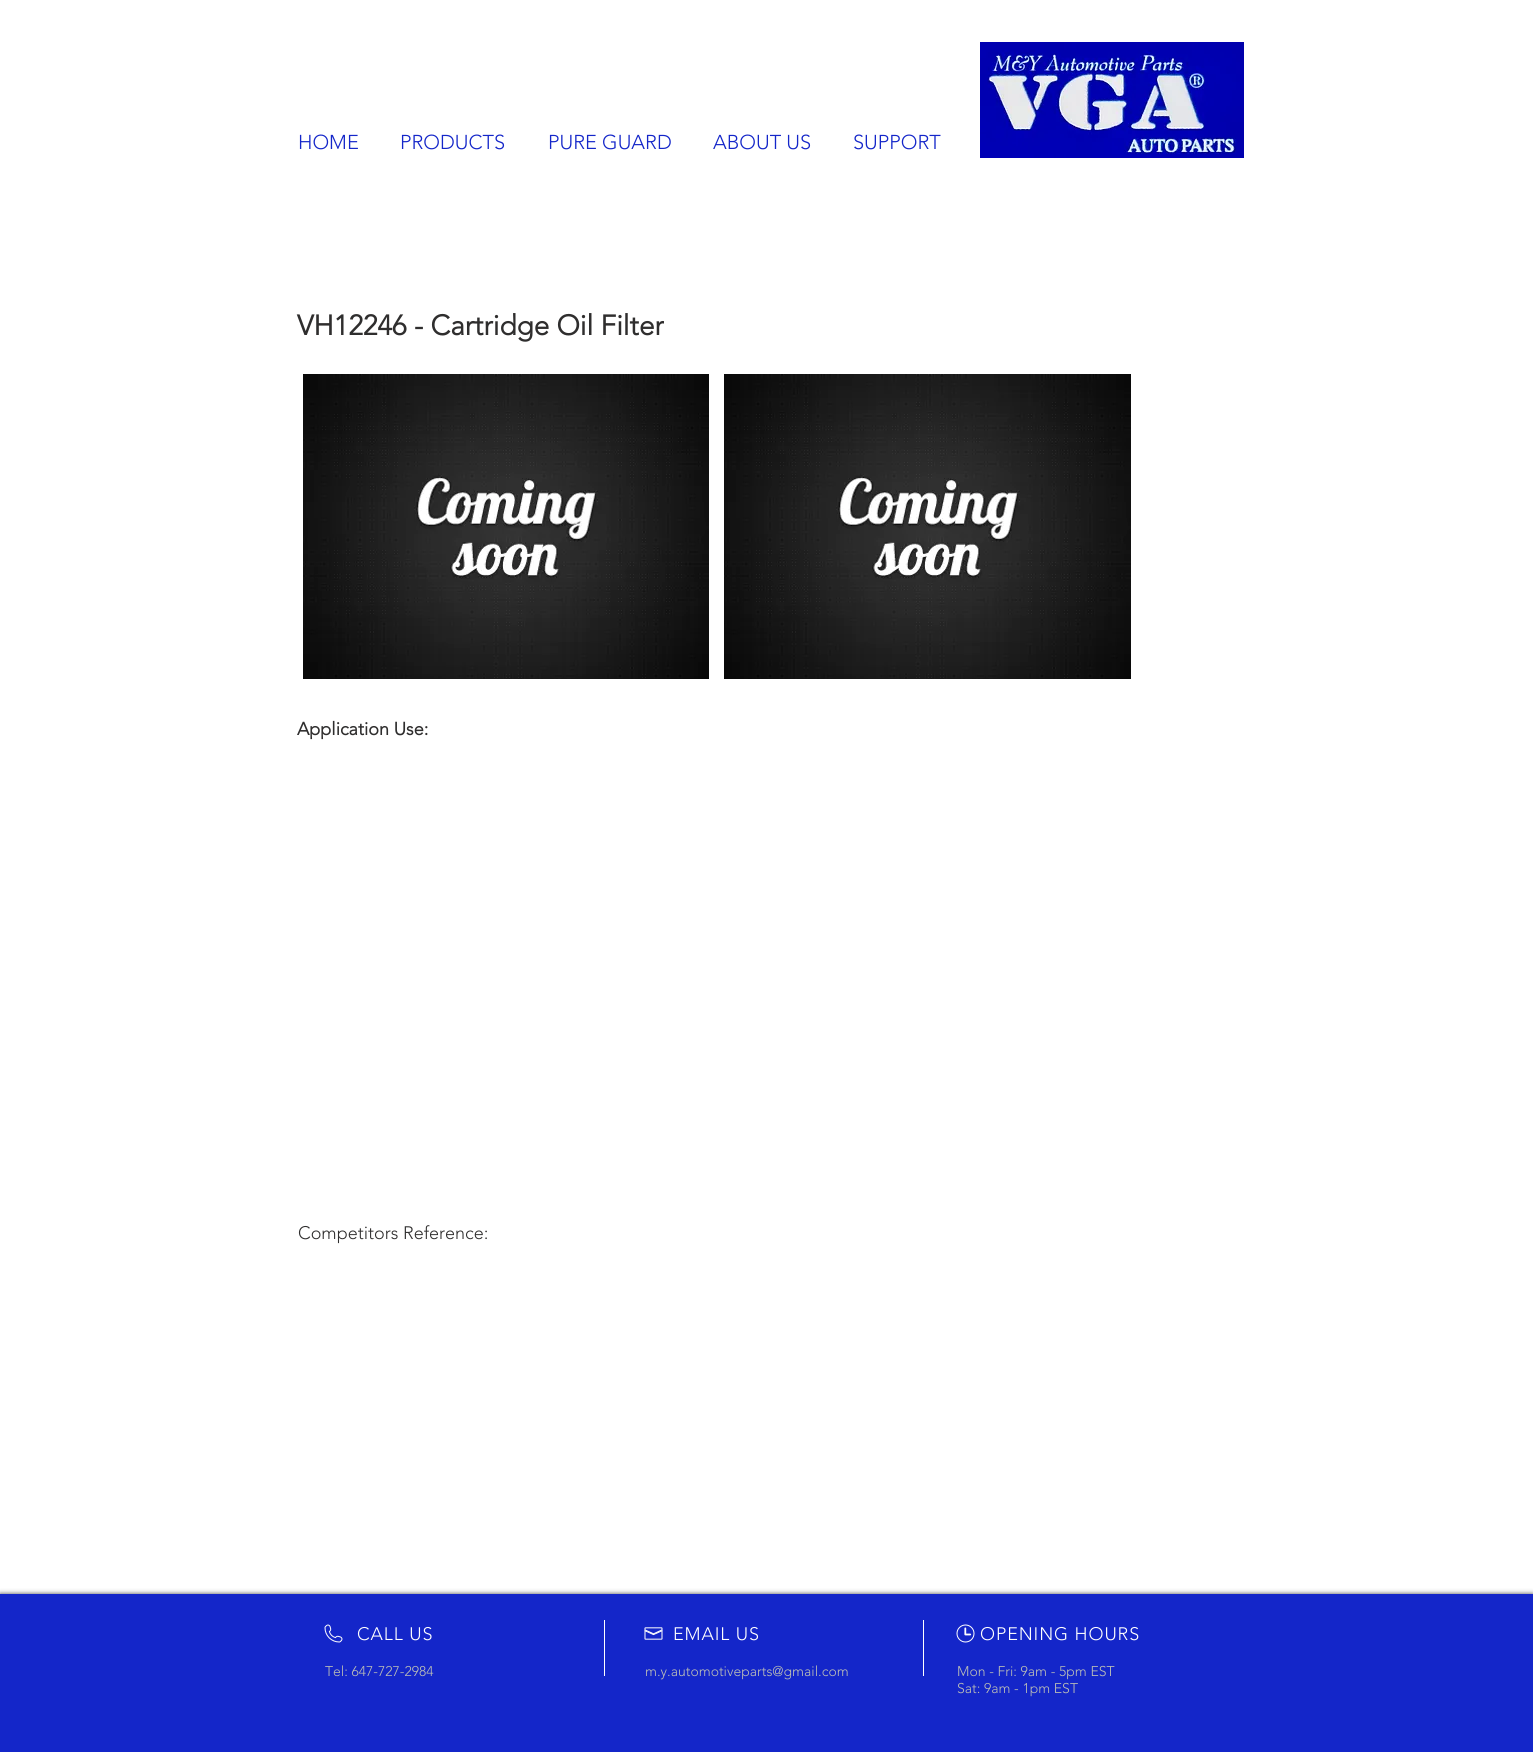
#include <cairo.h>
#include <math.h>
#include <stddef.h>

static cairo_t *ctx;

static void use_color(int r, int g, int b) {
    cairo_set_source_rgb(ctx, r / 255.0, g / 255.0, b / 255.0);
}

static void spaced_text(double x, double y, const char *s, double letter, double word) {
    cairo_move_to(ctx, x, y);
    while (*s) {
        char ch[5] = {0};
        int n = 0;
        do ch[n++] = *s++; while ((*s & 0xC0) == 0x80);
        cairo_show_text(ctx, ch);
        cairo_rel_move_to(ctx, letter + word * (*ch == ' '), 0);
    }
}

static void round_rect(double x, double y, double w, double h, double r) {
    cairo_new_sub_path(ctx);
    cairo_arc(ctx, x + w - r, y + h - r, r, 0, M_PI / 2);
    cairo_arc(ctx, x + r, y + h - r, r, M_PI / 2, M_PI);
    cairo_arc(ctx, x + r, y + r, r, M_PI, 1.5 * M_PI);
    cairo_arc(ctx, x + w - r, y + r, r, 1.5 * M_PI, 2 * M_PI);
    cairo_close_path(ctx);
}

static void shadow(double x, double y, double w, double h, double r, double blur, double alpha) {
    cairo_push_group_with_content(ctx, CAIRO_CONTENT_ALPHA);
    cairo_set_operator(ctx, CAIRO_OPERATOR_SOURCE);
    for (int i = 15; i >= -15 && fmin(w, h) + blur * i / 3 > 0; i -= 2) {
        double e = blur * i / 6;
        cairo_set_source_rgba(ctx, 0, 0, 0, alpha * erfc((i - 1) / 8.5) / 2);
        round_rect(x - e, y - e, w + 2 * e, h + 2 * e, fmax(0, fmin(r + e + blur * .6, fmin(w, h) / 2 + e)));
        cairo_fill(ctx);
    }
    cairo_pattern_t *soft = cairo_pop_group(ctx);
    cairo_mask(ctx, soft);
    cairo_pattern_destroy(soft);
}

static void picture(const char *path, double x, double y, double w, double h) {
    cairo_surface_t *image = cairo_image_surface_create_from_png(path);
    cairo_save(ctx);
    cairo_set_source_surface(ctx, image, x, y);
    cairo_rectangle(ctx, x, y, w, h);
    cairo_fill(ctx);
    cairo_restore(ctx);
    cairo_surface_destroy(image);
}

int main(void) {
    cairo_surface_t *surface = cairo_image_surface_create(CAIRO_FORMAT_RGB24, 1533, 1752);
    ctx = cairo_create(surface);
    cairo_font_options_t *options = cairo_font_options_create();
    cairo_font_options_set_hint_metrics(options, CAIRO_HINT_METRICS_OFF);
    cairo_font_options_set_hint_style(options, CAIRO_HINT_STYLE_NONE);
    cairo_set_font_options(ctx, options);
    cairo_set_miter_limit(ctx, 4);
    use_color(255, 255, 255);
    cairo_paint(ctx);
    cairo_select_font_face(ctx, "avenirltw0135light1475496 Light", CAIRO_FONT_SLANT_NORMAL, CAIRO_FONT_WEIGHT_NORMAL);
    cairo_set_font_size(ctx, 20);
    use_color(20, 38, 201);
    cairo_move_to(ctx, 298, 149);
    cairo_show_text(ctx, "HOME");
    cairo_move_to(ctx, 400, 149);
    cairo_show_text(ctx, "PRODUCTS");
    cairo_move_to(ctx, 548, 149);
    cairo_show_text(ctx, "PURE GUARD");
    cairo_move_to(ctx, 713, 149);
    cairo_show_text(ctx, "ABOUT US");
    cairo_move_to(ctx, 853, 149);
    cairo_show_text(ctx, "SUPPORT");
    picture("img1.png", 980, 42, 264, 116);
    cairo_select_font_face(ctx, "avenirltw0135light1475496", CAIRO_FONT_SLANT_NORMAL, CAIRO_FONT_WEIGHT_BOLD);
    cairo_set_font_size(ctx, 28);
    use_color(47, 46, 46);
    cairo_move_to(ctx, 297, 335);
    cairo_show_text(ctx, "VH12246 - Cartridge Oil Filter");
    picture("img2.png", 303, 374, 406, 305);
    picture("img3.png", 724, 374, 407, 305);
    cairo_set_font_size(ctx, 18);
    cairo_move_to(ctx, 297, 735);
    cairo_show_text(ctx, "Application Use:");
    cairo_select_font_face(ctx, "avenirltw0135light1475496 Light", CAIRO_FONT_SLANT_NORMAL, CAIRO_FONT_WEIGHT_NORMAL);
    cairo_move_to(ctx, 298, 1239);
    cairo_show_text(ctx, "Competitors Reference:");
    use_color(0, 0, 0);
    shadow(0, 1594, 1533, 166, 0, 2.5, 0.7);
    use_color(20, 38, 201);
    cairo_rectangle(ctx, 0, 1594, 1533, 158);
    cairo_fill(ctx);
    picture("img4.png", 324, 1624, 19, 19);
    use_color(255, 255, 255);
    spaced_text(357, 1640, "CALL US", 0.9, 0);
    cairo_rectangle(ctx, 604, 1620, 1, 56);
    cairo_fill(ctx);
    picture("img5.png", 644, 1627, 19, 13);
    spaced_text(673, 1640, "EMAIL US", 0.9, 0);
    cairo_rectangle(ctx, 923, 1620, 1, 56);
    cairo_fill(ctx);
    picture("img6.png", 956, 1624, 19, 19);
    spaced_text(980, 1640, "OPENING HOURS", 0.9, 0);
    cairo_set_font_size(ctx, 14);
    use_color(190, 192, 182);
    cairo_move_to(ctx, 325, 1676);
    cairo_show_text(ctx, "Tel: 647-727-2984");
    cairo_move_to(ctx, 645, 1676);
    cairo_show_text(ctx, "m.y.automotiveparts@gmail.com");
    cairo_move_to(ctx, 957, 1676);
    cairo_show_text(ctx, "Mon - Fri: 9am - 5pm EST");
    cairo_move_to(ctx, 957, 1693);
    cairo_show_text(ctx, "Sat: 9am - 1pm EST");
    cairo_surface_write_to_png(surface, "result.png");
    cairo_font_options_destroy(options);
    cairo_destroy(ctx);
    cairo_surface_destroy(surface);
    return 0;
}
